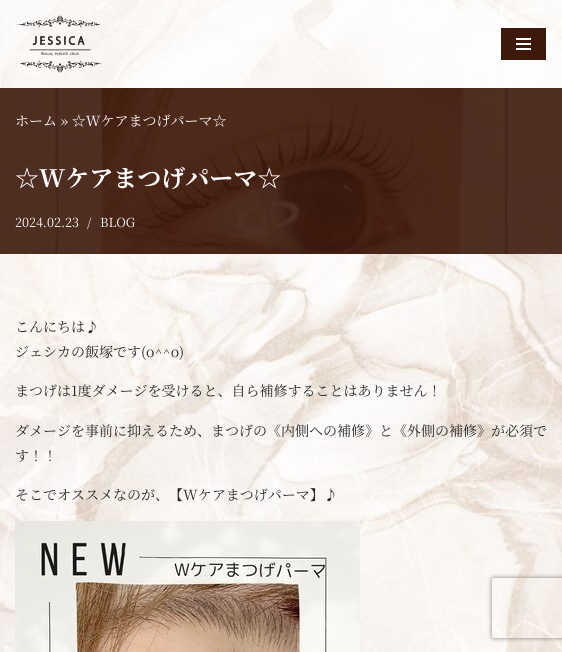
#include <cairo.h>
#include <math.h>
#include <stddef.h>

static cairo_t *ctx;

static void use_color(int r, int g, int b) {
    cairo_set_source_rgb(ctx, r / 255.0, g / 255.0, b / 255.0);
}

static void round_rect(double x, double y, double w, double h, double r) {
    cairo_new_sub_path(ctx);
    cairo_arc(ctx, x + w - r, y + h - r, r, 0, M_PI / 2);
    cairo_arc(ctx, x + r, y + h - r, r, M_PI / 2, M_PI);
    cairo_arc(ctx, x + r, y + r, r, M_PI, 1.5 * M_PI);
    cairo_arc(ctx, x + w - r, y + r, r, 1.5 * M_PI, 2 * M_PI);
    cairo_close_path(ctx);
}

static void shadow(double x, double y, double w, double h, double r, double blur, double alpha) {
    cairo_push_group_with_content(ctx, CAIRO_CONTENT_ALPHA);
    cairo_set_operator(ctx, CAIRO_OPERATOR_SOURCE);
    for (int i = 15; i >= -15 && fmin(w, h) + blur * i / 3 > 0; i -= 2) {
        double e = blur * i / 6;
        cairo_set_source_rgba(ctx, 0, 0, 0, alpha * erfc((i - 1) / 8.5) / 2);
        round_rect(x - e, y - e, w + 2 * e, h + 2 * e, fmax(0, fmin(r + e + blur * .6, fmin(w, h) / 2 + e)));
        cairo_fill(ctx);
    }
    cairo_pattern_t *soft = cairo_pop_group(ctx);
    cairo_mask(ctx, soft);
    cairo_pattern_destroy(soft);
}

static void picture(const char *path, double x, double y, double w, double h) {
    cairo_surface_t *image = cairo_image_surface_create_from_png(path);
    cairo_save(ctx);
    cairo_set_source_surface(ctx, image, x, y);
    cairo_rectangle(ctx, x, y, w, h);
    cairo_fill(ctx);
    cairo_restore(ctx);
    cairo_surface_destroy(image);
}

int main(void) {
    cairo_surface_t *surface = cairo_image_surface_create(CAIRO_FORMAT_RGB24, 562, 652);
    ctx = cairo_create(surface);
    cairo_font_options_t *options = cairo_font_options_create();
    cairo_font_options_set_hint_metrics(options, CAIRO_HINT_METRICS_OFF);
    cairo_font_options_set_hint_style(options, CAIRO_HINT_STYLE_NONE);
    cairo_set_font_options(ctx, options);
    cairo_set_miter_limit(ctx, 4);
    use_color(255, 255, 255);
    cairo_paint(ctx);
    picture("img1.png", 0, 0, 562, 652);
    cairo_set_source_rgba(ctx, 1, 1, 1, 0.65);
    cairo_rectangle(ctx, 0, 0, 562, 88);
    cairo_fill(ctx);
    picture("img2.png", 16, 15, 86, 58);
    use_color(61, 25, 12);
    cairo_rectangle(ctx, 500.5, 27.5, 46, 33);
    cairo_fill_preserve(ctx);
    use_color(255, 255, 255);
    cairo_set_line_width(ctx, 1);
    cairo_stroke(ctx);
    cairo_rectangle(ctx, 516, 38, 15, 2);
    cairo_fill(ctx);
    cairo_rectangle(ctx, 516, 43, 15, 2);
    cairo_fill(ctx);
    cairo_rectangle(ctx, 516, 48, 15, 2);
    cairo_fill(ctx);
    picture("img3.png", 0, 88, 562, 166);
    cairo_select_font_face(ctx, "Noto Serif JP", CAIRO_FONT_SLANT_NORMAL, CAIRO_FONT_WEIGHT_NORMAL);
    cairo_set_font_size(ctx, 14);
    cairo_move_to(ctx, 15, 126);
    cairo_show_text(ctx, "ホーム » ☆Wケアまつげパーマ☆");
    cairo_select_font_face(ctx, "Noto Serif JP", CAIRO_FONT_SLANT_NORMAL, CAIRO_FONT_WEIGHT_BOLD);
    cairo_set_font_size(ctx, 24);
    cairo_move_to(ctx, 15, 187);
    cairo_show_text(ctx, "☆Wケアまつげパーマ☆");
    cairo_select_font_face(ctx, "Noto Serif JP", CAIRO_FONT_SLANT_NORMAL, CAIRO_FONT_WEIGHT_NORMAL);
    cairo_set_font_size(ctx, 12.5);
    cairo_move_to(ctx, 15, 227);
    cairo_show_text(ctx, "2024.02.23");
    cairo_move_to(ctx, 87, 227);
    cairo_show_text(ctx, "/");
    cairo_move_to(ctx, 100, 227);
    cairo_show_text(ctx, "BLOG");
    cairo_set_font_size(ctx, 14);
    use_color(39, 38, 38);
    cairo_move_to(ctx, 15, 332);
    cairo_show_text(ctx, "こんにちは♪");
    cairo_move_to(ctx, 15, 357);
    cairo_show_text(ctx, "ジェシカの飯塚です(o^^o)");
    cairo_move_to(ctx, 15, 396);
    cairo_show_text(ctx, "まつげは1度ダメージを受けると、自ら補修することはありません！");
    cairo_move_to(ctx, 15, 436);
    cairo_show_text(ctx, "ダメージを事前に抑えるため、まつげの《内側への補修》と《外側の補修》が必須で");
    cairo_move_to(ctx, 15, 461);
    cairo_show_text(ctx, "す！！");
    cairo_move_to(ctx, 15, 500);
    cairo_show_text(ctx, "そこでオススメなのが、【Wケアまつげパーマ】♪");
    picture("img4.png", 15, 521, 345, 131);
    cairo_save(ctx);
    cairo_set_fill_rule(ctx, CAIRO_FILL_RULE_EVEN_ODD);
    cairo_new_path(ctx);
    cairo_move_to(ctx, 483, 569);
    cairo_line_to(ctx, 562, 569);
    cairo_line_to(ctx, 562, 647);
    cairo_line_to(ctx, 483, 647);
    cairo_close_path(ctx);
    cairo_move_to(ctx, 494, 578);
    cairo_line_to(ctx, 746, 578);
    cairo_curve_to(ctx, 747, 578, 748, 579, 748, 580);
    cairo_line_to(ctx, 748, 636);
    cairo_curve_to(ctx, 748, 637, 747, 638, 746, 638);
    cairo_line_to(ctx, 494, 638);
    cairo_curve_to(ctx, 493, 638, 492, 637, 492, 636);
    cairo_line_to(ctx, 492, 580);
    cairo_curve_to(ctx, 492, 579, 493, 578, 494, 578);
    cairo_close_path(ctx);
    cairo_clip(ctx);
    use_color(128, 128, 128);
    shadow(492, 578, 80, 60, 2, 2.5, 1);
    cairo_restore(ctx);
    cairo_surface_write_to_png(surface, "result.png");
    cairo_font_options_destroy(options);
    cairo_destroy(ctx);
    cairo_surface_destroy(surface);
    return 0;
}
